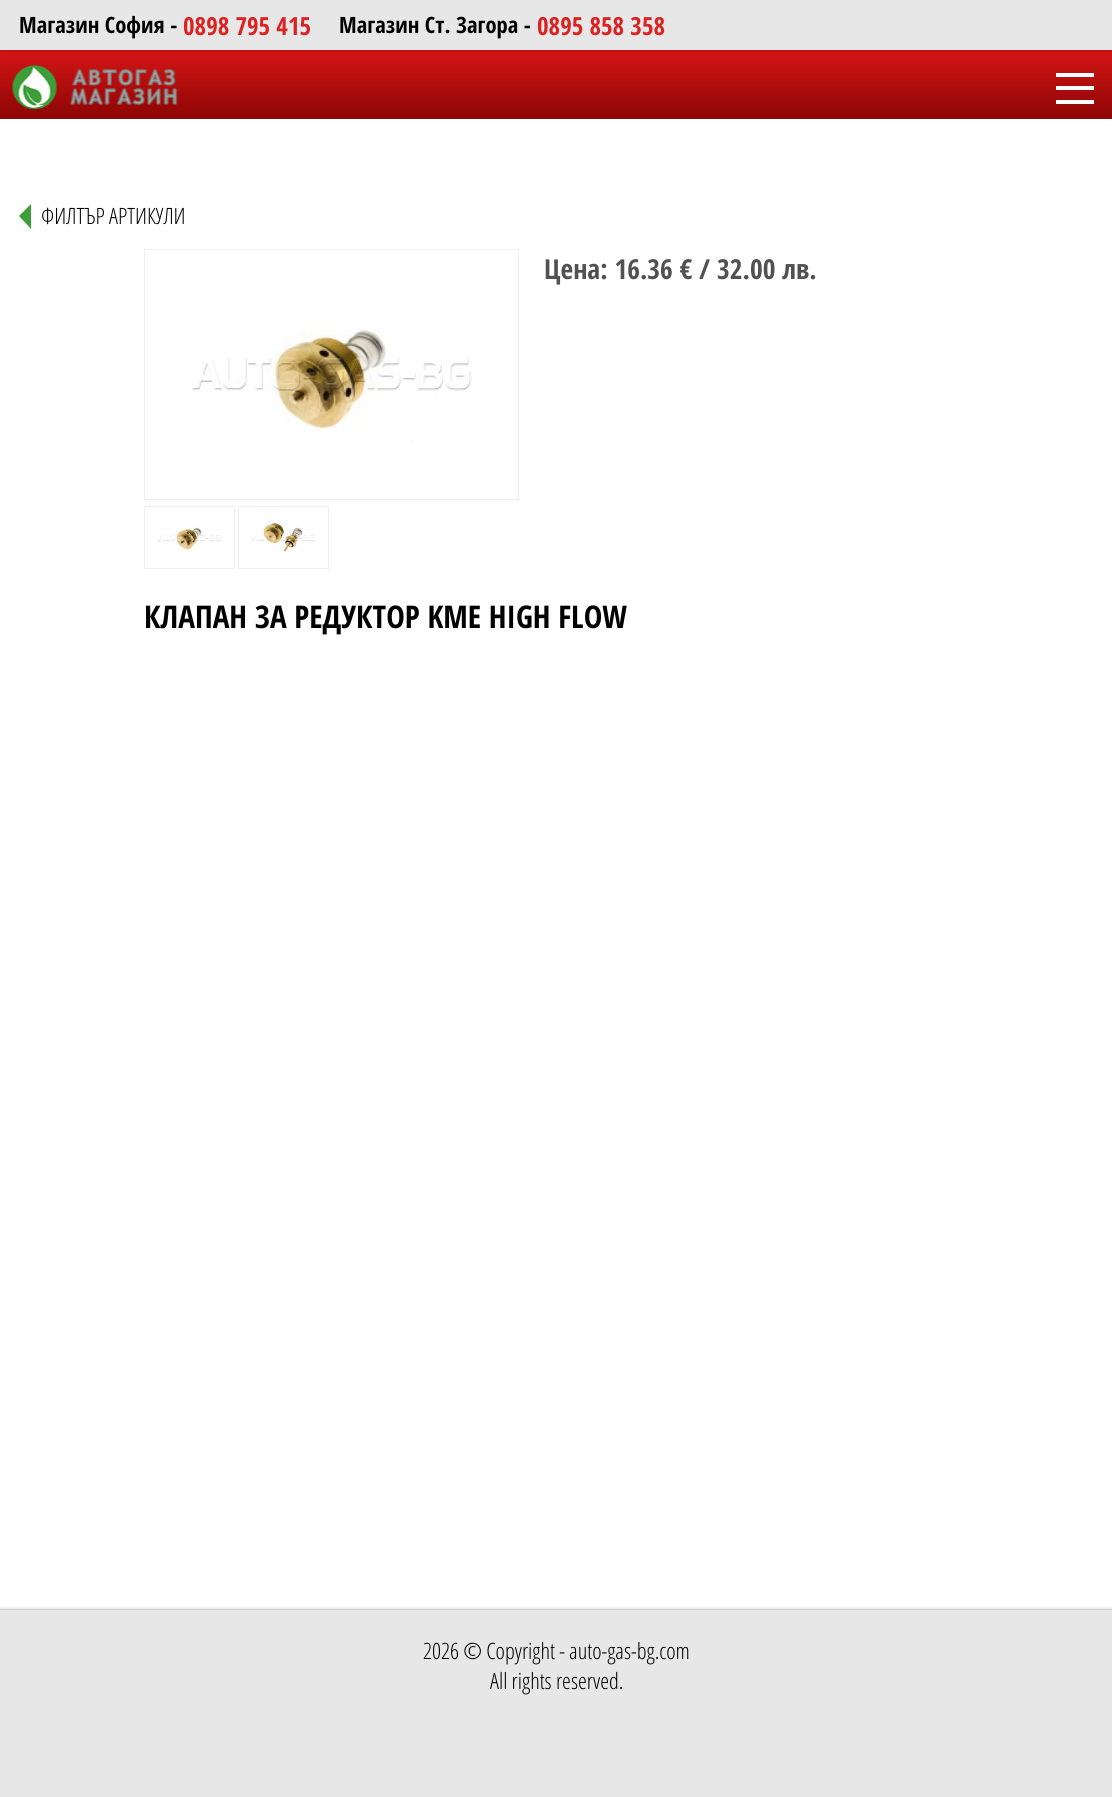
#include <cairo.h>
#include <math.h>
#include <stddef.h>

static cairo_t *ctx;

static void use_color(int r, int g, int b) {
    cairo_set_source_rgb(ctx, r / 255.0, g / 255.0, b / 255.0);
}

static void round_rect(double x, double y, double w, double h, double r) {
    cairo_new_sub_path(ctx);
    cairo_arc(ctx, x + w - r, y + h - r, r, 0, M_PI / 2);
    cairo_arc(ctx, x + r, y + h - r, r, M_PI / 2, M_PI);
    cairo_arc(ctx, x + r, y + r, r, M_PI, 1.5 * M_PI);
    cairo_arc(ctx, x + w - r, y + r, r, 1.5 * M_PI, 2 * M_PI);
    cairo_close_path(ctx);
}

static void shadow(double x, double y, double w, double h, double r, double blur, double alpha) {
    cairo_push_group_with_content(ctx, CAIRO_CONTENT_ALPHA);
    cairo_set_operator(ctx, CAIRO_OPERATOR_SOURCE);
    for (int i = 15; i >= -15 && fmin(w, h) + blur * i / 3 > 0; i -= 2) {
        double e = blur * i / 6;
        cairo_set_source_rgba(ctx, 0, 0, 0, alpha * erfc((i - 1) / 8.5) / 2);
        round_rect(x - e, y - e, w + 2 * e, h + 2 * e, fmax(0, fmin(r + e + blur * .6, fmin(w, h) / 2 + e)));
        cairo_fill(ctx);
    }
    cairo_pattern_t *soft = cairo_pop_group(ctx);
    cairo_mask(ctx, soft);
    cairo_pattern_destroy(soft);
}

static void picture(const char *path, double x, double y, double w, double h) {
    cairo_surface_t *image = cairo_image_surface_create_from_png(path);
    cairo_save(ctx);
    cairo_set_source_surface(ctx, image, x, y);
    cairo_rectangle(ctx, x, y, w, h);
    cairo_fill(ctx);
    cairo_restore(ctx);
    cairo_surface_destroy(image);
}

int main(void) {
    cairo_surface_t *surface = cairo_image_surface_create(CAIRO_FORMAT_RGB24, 1112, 1797);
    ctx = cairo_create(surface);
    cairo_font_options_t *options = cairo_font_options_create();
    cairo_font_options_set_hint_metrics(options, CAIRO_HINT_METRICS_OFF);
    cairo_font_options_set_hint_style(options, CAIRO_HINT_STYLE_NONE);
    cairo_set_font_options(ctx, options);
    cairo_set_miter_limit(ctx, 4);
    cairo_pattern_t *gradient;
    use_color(255, 255, 255);
    cairo_paint(ctx);
    gradient = cairo_pattern_create_linear(556, 50, 556, 119);
    cairo_pattern_add_color_stop_rgba(gradient, 0, 0.839, 0.082, 0.082, 1);
    cairo_pattern_add_color_stop_rgba(gradient, 1, 0.549, 0.02, 0.02, 1);
    cairo_set_source(ctx, gradient);
    cairo_pattern_destroy(gradient);
    cairo_rectangle(ctx, 0, 50, 1112, 69);
    cairo_fill(ctx);
    use_color(0, 0, 0);
    shadow(0, 0, 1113, 50, 0, 2, 0.4);
    use_color(231, 231, 231);
    cairo_rectangle(ctx, 0, 0, 1112, 50);
    cairo_fill(ctx);
    cairo_select_font_face(ctx, "Open Sans Condensed", CAIRO_FONT_SLANT_NORMAL, CAIRO_FONT_WEIGHT_BOLD);
    cairo_set_font_size(ctx, 22.5);
    use_color(0, 0, 0);
    cairo_move_to(ctx, 19, 33);
    cairo_show_text(ctx, "Магазин София -");
    cairo_set_font_size(ctx, 25);
    use_color(216, 36, 34);
    cairo_move_to(ctx, 183, 35);
    cairo_show_text(ctx, "0898 795 415");
    cairo_set_font_size(ctx, 22.5);
    use_color(0, 0, 0);
    cairo_move_to(ctx, 339, 33);
    cairo_show_text(ctx, "Магазин Ст. Загора -");
    cairo_set_font_size(ctx, 25);
    use_color(216, 36, 34);
    cairo_move_to(ctx, 537, 35);
    cairo_show_text(ctx, "0895 858 358");
    picture("img1.png", 12, 65, 166, 45);
    use_color(255, 255, 255);
    cairo_rectangle(ctx, 1056, 73, 38, 4);
    cairo_fill(ctx);
    cairo_rectangle(ctx, 1056, 86, 38, 4);
    cairo_fill(ctx);
    cairo_rectangle(ctx, 1056, 100, 38, 4);
    cairo_fill(ctx);
    use_color(62, 158, 58);
    cairo_new_path(ctx);
    cairo_move_to(ctx, 31, 204);
    cairo_line_to(ctx, 31, 229);
    cairo_line_to(ctx, 19, 216);
    cairo_close_path(ctx);
    cairo_fill(ctx);
    cairo_select_font_face(ctx, "Open Sans Condensed Light", CAIRO_FONT_SLANT_NORMAL, CAIRO_FONT_WEIGHT_NORMAL);
    cairo_set_font_size(ctx, 22.5);
    use_color(0, 0, 0);
    cairo_move_to(ctx, 41, 224);
    cairo_show_text(ctx, "ФИЛТЪР АРТИКУЛИ");
    cairo_rectangle(ctx, 144.5, 249.5, 374, 250);
    use_color(239, 239, 239);
    cairo_set_line_width(ctx, 1);
    cairo_stroke(ctx);
    picture("img2.png", 192, 329, 280, 113);
    cairo_rectangle(ctx, 144.5, 506.5, 90, 62);
    cairo_stroke(ctx);
    picture("img3.png", 158, 527, 63, 23);
    cairo_rectangle(ctx, 238.5, 506.5, 90, 62);
    cairo_stroke(ctx);
    picture("img4.png", 252, 523, 63, 31);
    cairo_select_font_face(ctx, "Open Sans Condensed", CAIRO_FONT_SLANT_NORMAL, CAIRO_FONT_WEIGHT_BOLD);
    cairo_set_font_size(ctx, 27.5);
    use_color(81, 81, 81);
    cairo_move_to(ctx, 544, 279);
    cairo_show_text(ctx, "Цена: 16.36 € / 32.00 лв.");
    cairo_set_font_size(ctx, 31.25);
    use_color(0, 0, 0);
    cairo_move_to(ctx, 144, 628);
    cairo_show_text(ctx, "КЛАПАН ЗА РЕДУКТОР KME HIGH FLOW");
    use_color(0, 0, 0);
    shadow(0, 1610, 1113, 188, 0, 2, 0.4);
    use_color(231, 231, 231);
    cairo_rectangle(ctx, 0, 1610, 1112, 187);
    cairo_fill(ctx);
    cairo_select_font_face(ctx, "Open Sans Condensed Light", CAIRO_FONT_SLANT_NORMAL, CAIRO_FONT_WEIGHT_NORMAL);
    cairo_set_font_size(ctx, 22.5);
    use_color(0, 0, 0);
    cairo_move_to(ctx, 423, 1659);
    cairo_show_text(ctx, "2026 © Copyright - auto-gas-bg.com");
    cairo_move_to(ctx, 490, 1689);
    cairo_show_text(ctx, "All rights reserved.");
    cairo_surface_write_to_png(surface, "result.png");
    cairo_font_options_destroy(options);
    cairo_destroy(ctx);
    cairo_surface_destroy(surface);
    return 0;
}
